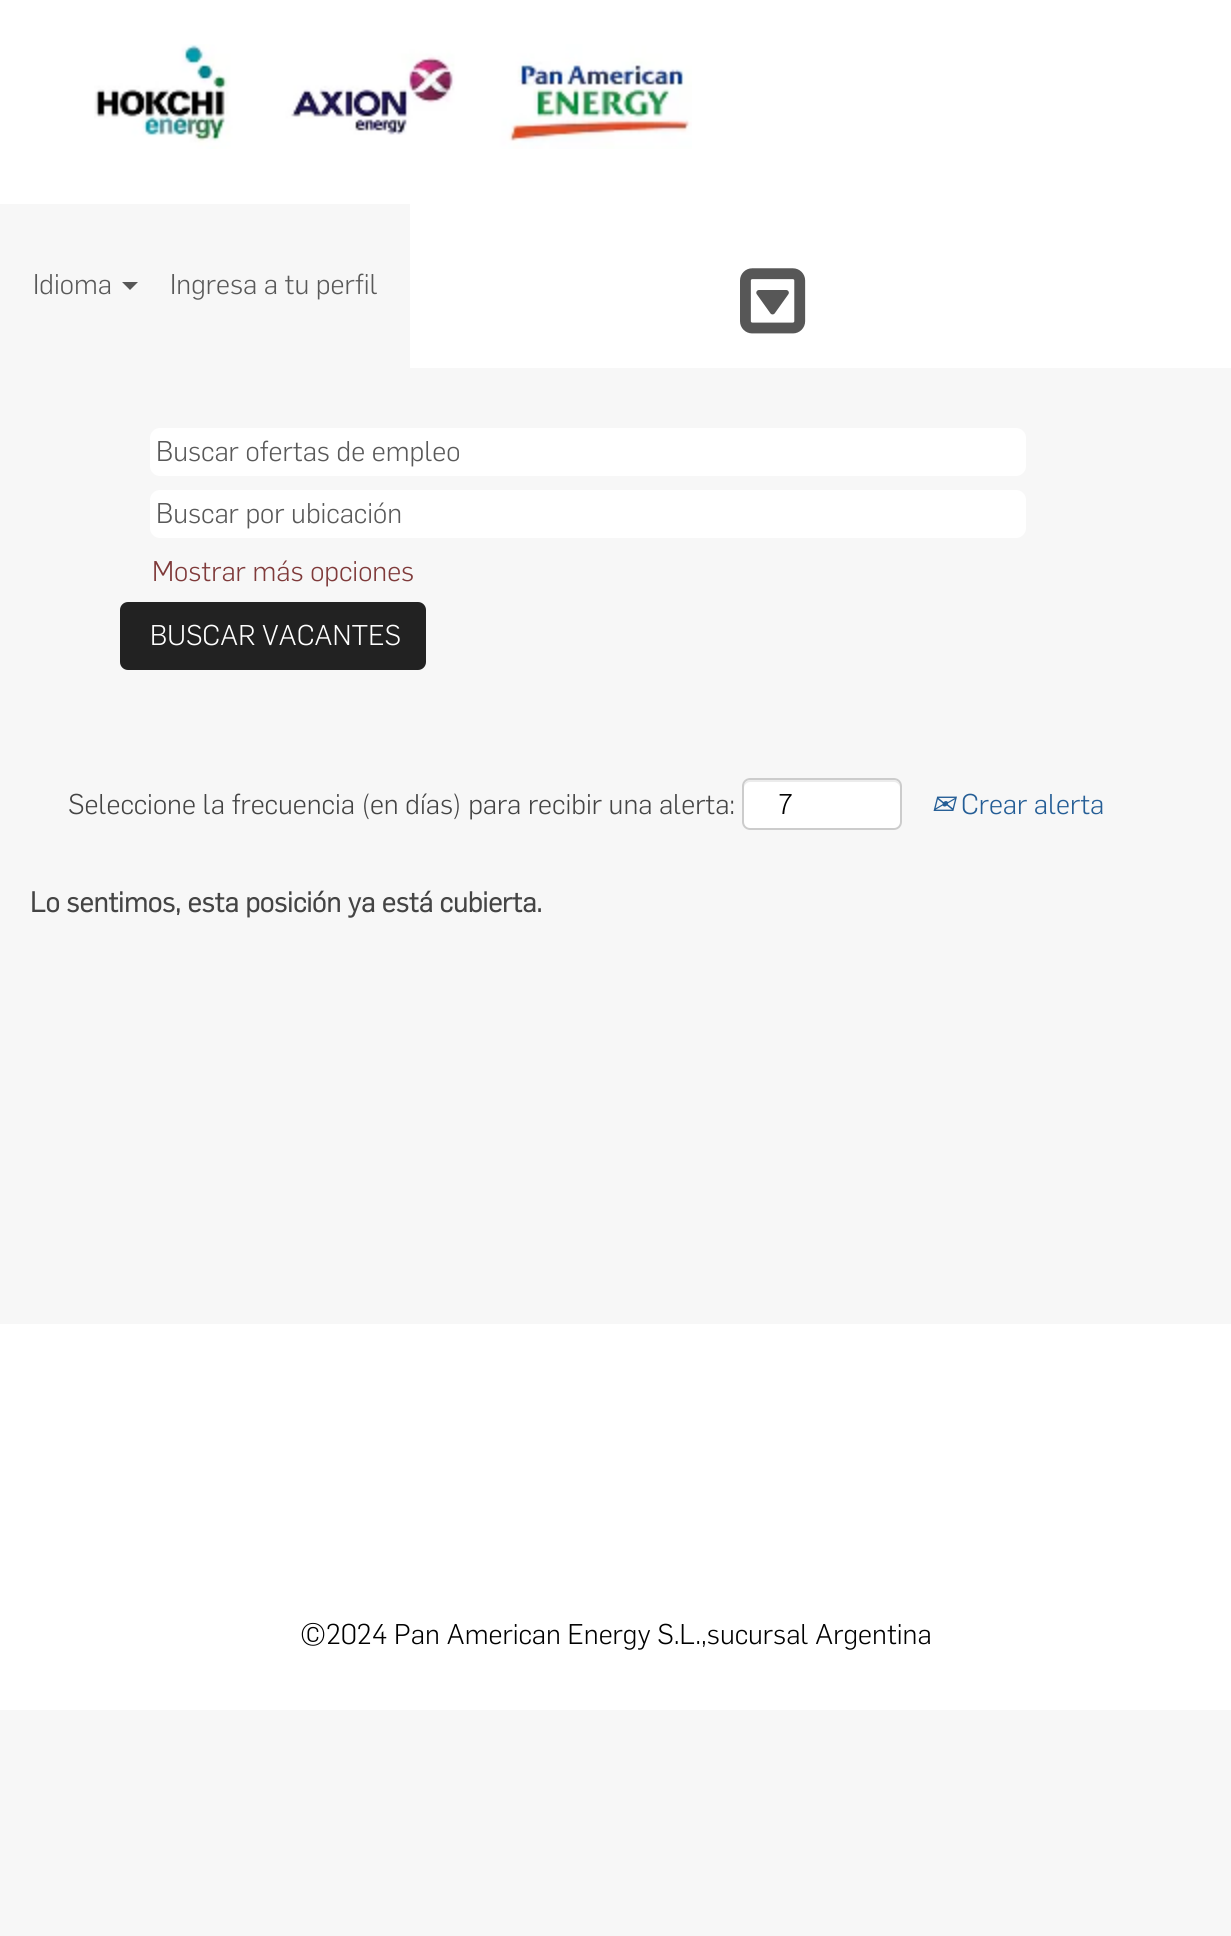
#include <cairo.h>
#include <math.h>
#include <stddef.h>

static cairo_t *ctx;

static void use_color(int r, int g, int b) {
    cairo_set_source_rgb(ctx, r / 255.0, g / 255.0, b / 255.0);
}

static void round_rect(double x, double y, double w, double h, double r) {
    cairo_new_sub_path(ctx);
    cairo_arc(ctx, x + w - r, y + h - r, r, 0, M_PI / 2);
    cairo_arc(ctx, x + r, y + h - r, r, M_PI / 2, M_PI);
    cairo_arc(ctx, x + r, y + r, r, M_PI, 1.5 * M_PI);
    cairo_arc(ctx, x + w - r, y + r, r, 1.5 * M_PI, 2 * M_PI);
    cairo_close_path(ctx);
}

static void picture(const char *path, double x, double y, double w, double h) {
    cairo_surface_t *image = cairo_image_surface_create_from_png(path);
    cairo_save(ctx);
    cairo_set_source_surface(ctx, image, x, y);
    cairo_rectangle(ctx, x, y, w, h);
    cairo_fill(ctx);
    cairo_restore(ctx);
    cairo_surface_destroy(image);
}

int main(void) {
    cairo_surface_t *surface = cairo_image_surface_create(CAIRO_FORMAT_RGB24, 1231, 1936);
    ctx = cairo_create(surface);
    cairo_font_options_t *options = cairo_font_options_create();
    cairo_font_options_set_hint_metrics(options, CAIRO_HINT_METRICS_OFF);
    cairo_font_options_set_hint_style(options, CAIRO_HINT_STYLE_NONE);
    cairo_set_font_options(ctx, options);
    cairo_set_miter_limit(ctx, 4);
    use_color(247, 247, 247);
    cairo_paint(ctx);
    use_color(255, 255, 255);
    cairo_rectangle(ctx, 0, 0, 1231, 368);
    cairo_fill(ctx);
    picture("img1.png", 94, 44, 598, 105);
    use_color(247, 247, 247);
    cairo_rectangle(ctx, 0, 204, 410, 164);
    cairo_fill(ctx);
    cairo_select_font_face(ctx, "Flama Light", CAIRO_FONT_SLANT_NORMAL, CAIRO_FONT_WEIGHT_NORMAL);
    cairo_set_font_size(ctx, 28);
    use_color(89, 89, 89);
    cairo_move_to(ctx, 33, 294);
    cairo_show_text(ctx, "Idioma");
    use_color(87, 87, 87);
    cairo_new_path(ctx);
    cairo_move_to(ctx, 122, 282);
    cairo_line_to(ctx, 138, 282);
    cairo_line_to(ctx, 130, 290);
    cairo_close_path(ctx);
    cairo_fill(ctx);
    use_color(89, 89, 89);
    cairo_move_to(ctx, 170, 294);
    cairo_show_text(ctx, "Ingresa a tu perfil");
    picture("img2.png", 740, 268, 66, 66);
    use_color(255, 255, 255);
    round_rect(150, 428, 876, 48, 10);
    cairo_fill(ctx);
    use_color(89, 89, 89);
    cairo_move_to(ctx, 156, 461);
    cairo_show_text(ctx, "Buscar ofertas de empleo");
    use_color(255, 255, 255);
    round_rect(150, 490, 876, 48, 10);
    cairo_fill(ctx);
    use_color(89, 89, 89);
    cairo_move_to(ctx, 156, 523);
    cairo_show_text(ctx, "Buscar por ubicación");
    use_color(127, 58, 58);
    cairo_move_to(ctx, 152, 581);
    cairo_show_text(ctx, "Mostrar más opciones");
    use_color(34, 34, 34);
    round_rect(120, 602, 306, 68, 8);
    cairo_fill(ctx);
    use_color(255, 255, 255);
    cairo_move_to(ctx, 150, 645);
    cairo_show_text(ctx, "BUSCAR VACANTES");
    use_color(68, 68, 68);
    cairo_move_to(ctx, 68, 814);
    cairo_show_text(ctx, "Seleccione la frecuencia (en días) para recibir una alerta:");
    use_color(255, 255, 255);
    round_rect(742, 778, 160, 52, 8);
    cairo_fill(ctx);
    use_color(236, 236, 236);
    cairo_new_path(ctx);
    cairo_move_to(ctx, 750, 782);
    cairo_line_to(ctx, 894, 782);
    cairo_curve_to(ctx, 897, 782, 900, 785, 900, 788);
    cairo_line_to(ctx, 900, 786);
    cairo_curve_to(ctx, 900, 783, 897, 780, 894, 780);
    cairo_line_to(ctx, 750, 780);
    cairo_curve_to(ctx, 747, 780, 744, 783, 744, 786);
    cairo_line_to(ctx, 744, 788);
    cairo_curve_to(ctx, 744, 785, 747, 782, 750, 782);
    cairo_close_path(ctx);
    cairo_fill(ctx);
    round_rect(743, 779, 158, 50, 7);
    use_color(204, 204, 204);
    cairo_stroke(ctx);
    use_color(0, 0, 0);
    cairo_move_to(ctx, 778, 814);
    cairo_show_text(ctx, "7");
    cairo_select_font_face(ctx, "DejaVu Sans", CAIRO_FONT_SLANT_ITALIC, CAIRO_FONT_WEIGHT_NORMAL);
    use_color(37, 94, 150);
    cairo_move_to(ctx, 931, 814);
    cairo_show_text(ctx, "✉");
    cairo_select_font_face(ctx, "Flama Light", CAIRO_FONT_SLANT_NORMAL, CAIRO_FONT_WEIGHT_NORMAL);
    cairo_move_to(ctx, 961, 814);
    cairo_show_text(ctx, "Crear alerta");
    cairo_select_font_face(ctx, "Flama", CAIRO_FONT_SLANT_NORMAL, CAIRO_FONT_WEIGHT_BOLD);
    use_color(68, 68, 68);
    cairo_move_to(ctx, 30, 912);
    cairo_show_text(ctx, "Lo sentimos, esta posición ya está cubierta.");
    use_color(255, 255, 255);
    cairo_rectangle(ctx, 0, 1324, 1231, 386);
    cairo_fill(ctx);
    cairo_select_font_face(ctx, "Flama Light", CAIRO_FONT_SLANT_NORMAL, CAIRO_FONT_WEIGHT_NORMAL);
    use_color(0, 0, 0);
    cairo_move_to(ctx, 300, 1644);
    cairo_show_text(ctx, "©2024 Pan American Energy S.L.,sucursal Argentina");
    cairo_surface_write_to_png(surface, "result.png");
    cairo_font_options_destroy(options);
    cairo_destroy(ctx);
    cairo_surface_destroy(surface);
    return 0;
}
